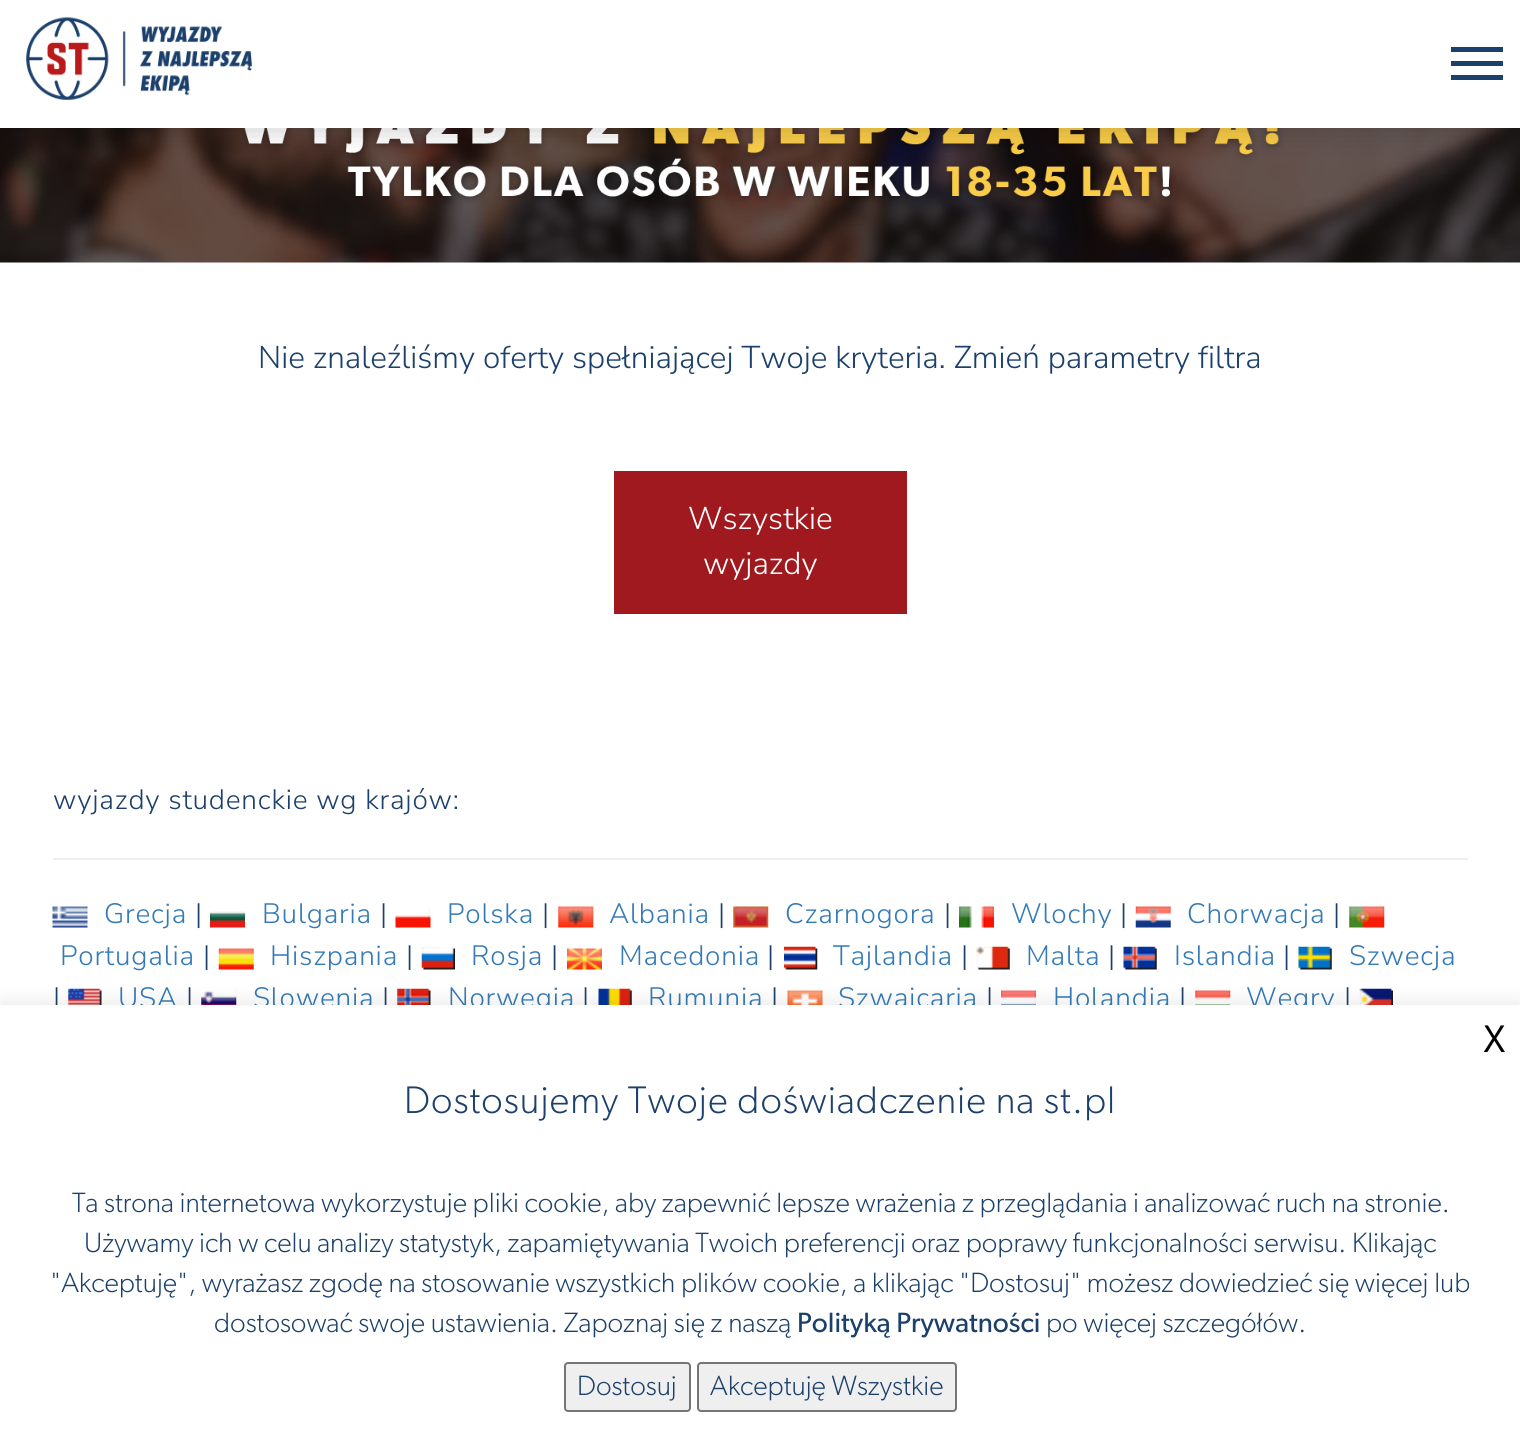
#include <cairo.h>
#include <math.h>
#include <stddef.h>

static cairo_t *ctx;

static void use_color(int r, int g, int b) {
    cairo_set_source_rgb(ctx, r / 255.0, g / 255.0, b / 255.0);
}

static void spaced_text(double x, double y, const char *s, double letter, double word) {
    cairo_move_to(ctx, x, y);
    while (*s) {
        char ch[5] = {0};
        int n = 0;
        do ch[n++] = *s++; while ((*s & 0xC0) == 0x80);
        cairo_show_text(ctx, ch);
        cairo_rel_move_to(ctx, letter + word * (*ch == ' '), 0);
    }
}

static void round_rect(double x, double y, double w, double h, double r) {
    cairo_new_sub_path(ctx);
    cairo_arc(ctx, x + w - r, y + h - r, r, 0, M_PI / 2);
    cairo_arc(ctx, x + r, y + h - r, r, M_PI / 2, M_PI);
    cairo_arc(ctx, x + r, y + r, r, M_PI, 1.5 * M_PI);
    cairo_arc(ctx, x + w - r, y + r, r, 1.5 * M_PI, 2 * M_PI);
    cairo_close_path(ctx);
}

static void shadow(double x, double y, double w, double h, double r, double blur, double alpha) {
    cairo_push_group_with_content(ctx, CAIRO_CONTENT_ALPHA);
    cairo_set_operator(ctx, CAIRO_OPERATOR_SOURCE);
    for (int i = 15; i >= -15 && fmin(w, h) + blur * i / 3 > 0; i -= 2) {
        double e = blur * i / 6;
        cairo_set_source_rgba(ctx, 0, 0, 0, alpha * erfc((i - 1) / 8.5) / 2);
        round_rect(x - e, y - e, w + 2 * e, h + 2 * e, fmax(0, fmin(r + e + blur * .6, fmin(w, h) / 2 + e)));
        cairo_fill(ctx);
    }
    cairo_pattern_t *soft = cairo_pop_group(ctx);
    cairo_mask(ctx, soft);
    cairo_pattern_destroy(soft);
}

static void picture(const char *path, double x, double y, double w, double h) {
    cairo_surface_t *image = cairo_image_surface_create_from_png(path);
    cairo_save(ctx);
    cairo_set_source_surface(ctx, image, x, y);
    cairo_rectangle(ctx, x, y, w, h);
    cairo_fill(ctx);
    cairo_restore(ctx);
    cairo_surface_destroy(image);
}

int main(void) {
    cairo_surface_t *surface = cairo_image_surface_create(CAIRO_FORMAT_RGB24, 1520, 1447);
    ctx = cairo_create(surface);
    cairo_font_options_t *options = cairo_font_options_create();
    cairo_font_options_set_hint_metrics(options, CAIRO_HINT_METRICS_OFF);
    cairo_font_options_set_hint_style(options, CAIRO_HINT_STYLE_NONE);
    cairo_set_font_options(ctx, options);
    cairo_set_miter_limit(ctx, 4);
    use_color(255, 255, 255);
    cairo_paint(ctx);
    picture("img2.png", 0, 128, 1520, 135);
    use_color(0, 0, 0);
    shadow(0, 2, 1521, 128, 0, 15, 0.2);
    use_color(255, 255, 255);
    cairo_rectangle(ctx, 0, 0, 1520, 128);
    cairo_fill(ctx);
    picture("img1.png", 26, 17, 226, 83);
    use_color(27, 64, 107);
    cairo_rectangle(ctx, 1451, 47, 52, 5);
    cairo_fill(ctx);
    cairo_rectangle(ctx, 1451, 61, 52, 5);
    cairo_fill(ctx);
    cairo_rectangle(ctx, 1451, 75, 52, 5);
    cairo_fill(ctx);
    cairo_select_font_face(ctx, "Nunito Sans Light", CAIRO_FONT_SLANT_NORMAL, CAIRO_FONT_WEIGHT_NORMAL);
    cairo_set_font_size(ctx, 31.5);
    cairo_move_to(ctx, 258, 368);
    cairo_show_text(ctx, "Nie znaleźliśmy oferty spełniającej Twoje kryteria. Zmień parametry filtra");
    use_color(159, 25, 31);
    cairo_rectangle(ctx, 614, 471, 293, 143);
    cairo_fill(ctx);
    use_color(255, 255, 255);
    cairo_move_to(ctx, 688, 529);
    cairo_show_text(ctx, "Wszystkie");
    cairo_move_to(ctx, 703, 574);
    cairo_show_text(ctx, "wyjazdy");
    cairo_set_font_size(ctx, 28);
    use_color(27, 64, 107);
    spaced_text(53, 809, "wyjazdy studenckie wg krajów:", 0.8, 0);
    use_color(238, 238, 238);
    cairo_rectangle(ctx, 53, 858, 1415, 2);
    cairo_fill(ctx);
    picture("img3.png", 52, 906, 36, 22);
    use_color(51, 122, 183);
    spaced_text(104, 923, "Grecja", 0.8, 0);
    use_color(27, 64, 107);
    spaced_text(195, 923, "|", 0.8, 0);
    picture("img4.png", 210, 911, 35, 17);
    use_color(51, 122, 183);
    spaced_text(262, 923, "Bulgaria", 0.8, 0);
    use_color(27, 64, 107);
    spaced_text(380, 923, "|", 0.8, 0);
    picture("img5.png", 395, 907, 36, 21);
    use_color(51, 122, 183);
    spaced_text(447, 923, "Polska", 0.8, 0);
    use_color(27, 64, 107);
    spaced_text(542, 923, "|", 0.8, 0);
    picture("img6.png", 558, 906, 36, 22);
    use_color(51, 122, 183);
    spaced_text(609, 923, "Albania", 0.8, 0);
    use_color(27, 64, 107);
    spaced_text(718, 923, "|", 0.8, 0);
    picture("img7.png", 733, 906, 36, 22);
    use_color(51, 122, 183);
    spaced_text(785, 923, "Czarnogora", 0.8, 0);
    use_color(27, 64, 107);
    spaced_text(944, 923, "|", 0.8, 0);
    picture("img8.png", 959, 906, 35, 22);
    use_color(51, 122, 183);
    spaced_text(1011, 923, "Wlochy", 0.8, 0);
    use_color(27, 64, 107);
    spaced_text(1120, 923, "|", 0.8, 0);
    picture("img9.png", 1135, 906, 36, 22);
    use_color(51, 122, 183);
    spaced_text(1187, 923, "Chorwacja", 0.8, 0);
    use_color(27, 64, 107);
    spaced_text(1333, 923, "|", 0.8, 0);
    picture("img10.png", 1349, 906, 36, 22);
    use_color(51, 122, 183);
    spaced_text(60, 965, "Portugalia", 0.8, 0);
    use_color(27, 64, 107);
    spaced_text(203, 965, "|", 0.8, 0);
    picture("img11.png", 218, 948, 36, 22);
    use_color(51, 122, 183);
    spaced_text(270, 965, "Hiszpania", 0.8, 0);
    use_color(27, 64, 107);
    spaced_text(406, 965, "|", 0.8, 0);
    picture("img12.png", 421, 946, 34, 24);
    use_color(51, 122, 183);
    spaced_text(471, 965, "Rosja", 0.8, 0);
    use_color(27, 64, 107);
    spaced_text(551, 965, "|", 0.8, 0);
    picture("img13.png", 567, 948, 35, 22);
    use_color(51, 122, 183);
    spaced_text(619, 965, "Macedonia", 0.8, 0);
    use_color(27, 64, 107);
    spaced_text(767, 965, "|", 0.8, 0);
    picture("img14.png", 784, 946, 34, 24);
    use_color(51, 122, 183);
    spaced_text(833, 965, "Tajlandia", 0.8, 0);
    use_color(27, 64, 107);
    spaced_text(961, 965, "|", 0.8, 0);
    picture("img15.png", 976, 946, 34, 24);
    use_color(51, 122, 183);
    spaced_text(1026, 965, "Malta", 0.8, 0);
    use_color(27, 64, 107);
    spaced_text(1108, 965, "|", 0.8, 0);
    picture("img16.png", 1123, 946, 34, 24);
    use_color(51, 122, 183);
    spaced_text(1174, 965, "Islandia", 0.8, 0);
    use_color(27, 64, 107);
    spaced_text(1283, 965, "|", 0.8, 0);
    picture("img17.png", 1298, 946, 34, 24);
    use_color(51, 122, 183);
    spaced_text(1349, 965, "Szwecja", 0.8, 0);
    use_color(27, 64, 107);
    spaced_text(53, 1007, "|", 0.8, 0);
    picture("img18.png", 68, 988, 34, 17);
    use_color(51, 122, 183);
    spaced_text(118, 1007, "USA", 0.8, 0);
    use_color(27, 64, 107);
    spaced_text(186, 1007, "|", 0.8, 0);
    picture("img19.png", 201, 990, 36, 15);
    use_color(51, 122, 183);
    spaced_text(253, 1007, "Slowenia", 0.8, 0);
    use_color(27, 64, 107);
    spaced_text(382, 1007, "|", 0.8, 0);
    picture("img20.png", 397, 988, 34, 17);
    use_color(51, 122, 183);
    spaced_text(448, 1007, "Norwegia", 0.8, 0);
    use_color(27, 64, 107);
    spaced_text(582, 1007, "|", 0.8, 0);
    picture("img21.png", 598, 988, 34, 17);
    use_color(51, 122, 183);
    spaced_text(648, 1007, "Rumunia", 0.8, 0);
    use_color(27, 64, 107);
    spaced_text(771, 1007, "|", 0.8, 0);
    picture("img22.png", 787, 990, 36, 15);
    use_color(51, 122, 183);
    spaced_text(838, 1007, "Szwajcaria", 0.8, 0);
    use_color(27, 64, 107);
    spaced_text(986, 1007, "|", 0.8, 0);
    picture("img23.png", 1001, 990, 35, 15);
    use_color(51, 122, 183);
    spaced_text(1053, 1007, "Holandia", 0.8, 0);
    use_color(27, 64, 107);
    spaced_text(1179, 1007, "|", 0.8, 0);
    picture("img24.png", 1195, 990, 36, 15);
    use_color(51, 122, 183);
    spaced_text(1246, 1007, "Wegry", 0.8, 0);
    use_color(27, 64, 107);
    spaced_text(1344, 1007, "|", 0.8, 0);
    picture("img25.png", 1359, 988, 34, 17);
    use_color(0, 0, 0);
    shadow(0, 999, 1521, 443, 0, 9, 0.07);
    use_color(255, 255, 255);
    cairo_rectangle(ctx, 0, 1005, 1520, 442);
    cairo_fill(ctx);
    cairo_select_font_face(ctx, "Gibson", CAIRO_FONT_SLANT_NORMAL, CAIRO_FONT_WEIGHT_BOLD);
    cairo_set_font_size(ctx, 37);
    use_color(0, 0, 0);
    cairo_move_to(ctx, 1484, 1052);
    cairo_show_text(ctx, "X");
    cairo_select_font_face(ctx, "Gibson Light", CAIRO_FONT_SLANT_NORMAL, CAIRO_FONT_WEIGHT_NORMAL);
    cairo_set_font_size(ctx, 38.5);
    use_color(27, 64, 107);
    spaced_text(404, 1113, "Dostosujemy Twoje doświadczenie na st.pl", 1.05, 0);
    cairo_set_font_size(ctx, 28);
    cairo_move_to(ctx, 72, 1212);
    cairo_show_text(ctx, "Ta strona internetowa wykorzystuje pliki cookie, aby zapewnić lepsze wrażenia z przeglądania i analizować ruch na stronie.");
    cairo_move_to(ctx, 84, 1252);
    cairo_show_text(ctx, "Używamy ich w celu analizy statystyk, zapamiętywania Twoich preferencji oraz poprawy funkcjonalności serwisu. Klikając");
    cairo_move_to(ctx, 50, 1292);
    cairo_show_text(ctx, "\"Akceptuję\", wyrażasz zgodę na stosowanie wszystkich plików cookie, a klikając \"Dostosuj\" możesz dowiedzieć się więcej lub");
    cairo_move_to(ctx, 214, 1332);
    cairo_show_text(ctx, "dostosować swoje ustawienia. Zapoznaj się z naszą");
    cairo_select_font_face(ctx, "Gibson", CAIRO_FONT_SLANT_NORMAL, CAIRO_FONT_WEIGHT_NORMAL);
    cairo_move_to(ctx, 797, 1332);
    cairo_show_text(ctx, "Polityką Prywatności");
    cairo_select_font_face(ctx, "Gibson Light", CAIRO_FONT_SLANT_NORMAL, CAIRO_FONT_WEIGHT_NORMAL);
    cairo_move_to(ctx, 1046, 1332);
    cairo_show_text(ctx, "po więcej szczegółów.");
    use_color(239, 239, 239);
    round_rect(565, 1363, 125, 48, 3);
    cairo_fill_preserve(ctx);
    use_color(118, 118, 118);
    cairo_stroke(ctx);
    use_color(27, 64, 107);
    cairo_move_to(ctx, 577, 1395);
    cairo_show_text(ctx, "Dostosuj");
    use_color(239, 239, 239);
    round_rect(698, 1363, 258, 48, 3);
    cairo_fill_preserve(ctx);
    use_color(118, 118, 118);
    cairo_stroke(ctx);
    use_color(27, 64, 107);
    cairo_move_to(ctx, 710, 1395);
    cairo_show_text(ctx, "Akceptuję Wszystkie");
    cairo_surface_write_to_png(surface, "result.png");
    cairo_font_options_destroy(options);
    cairo_destroy(ctx);
    cairo_surface_destroy(surface);
    return 0;
}
